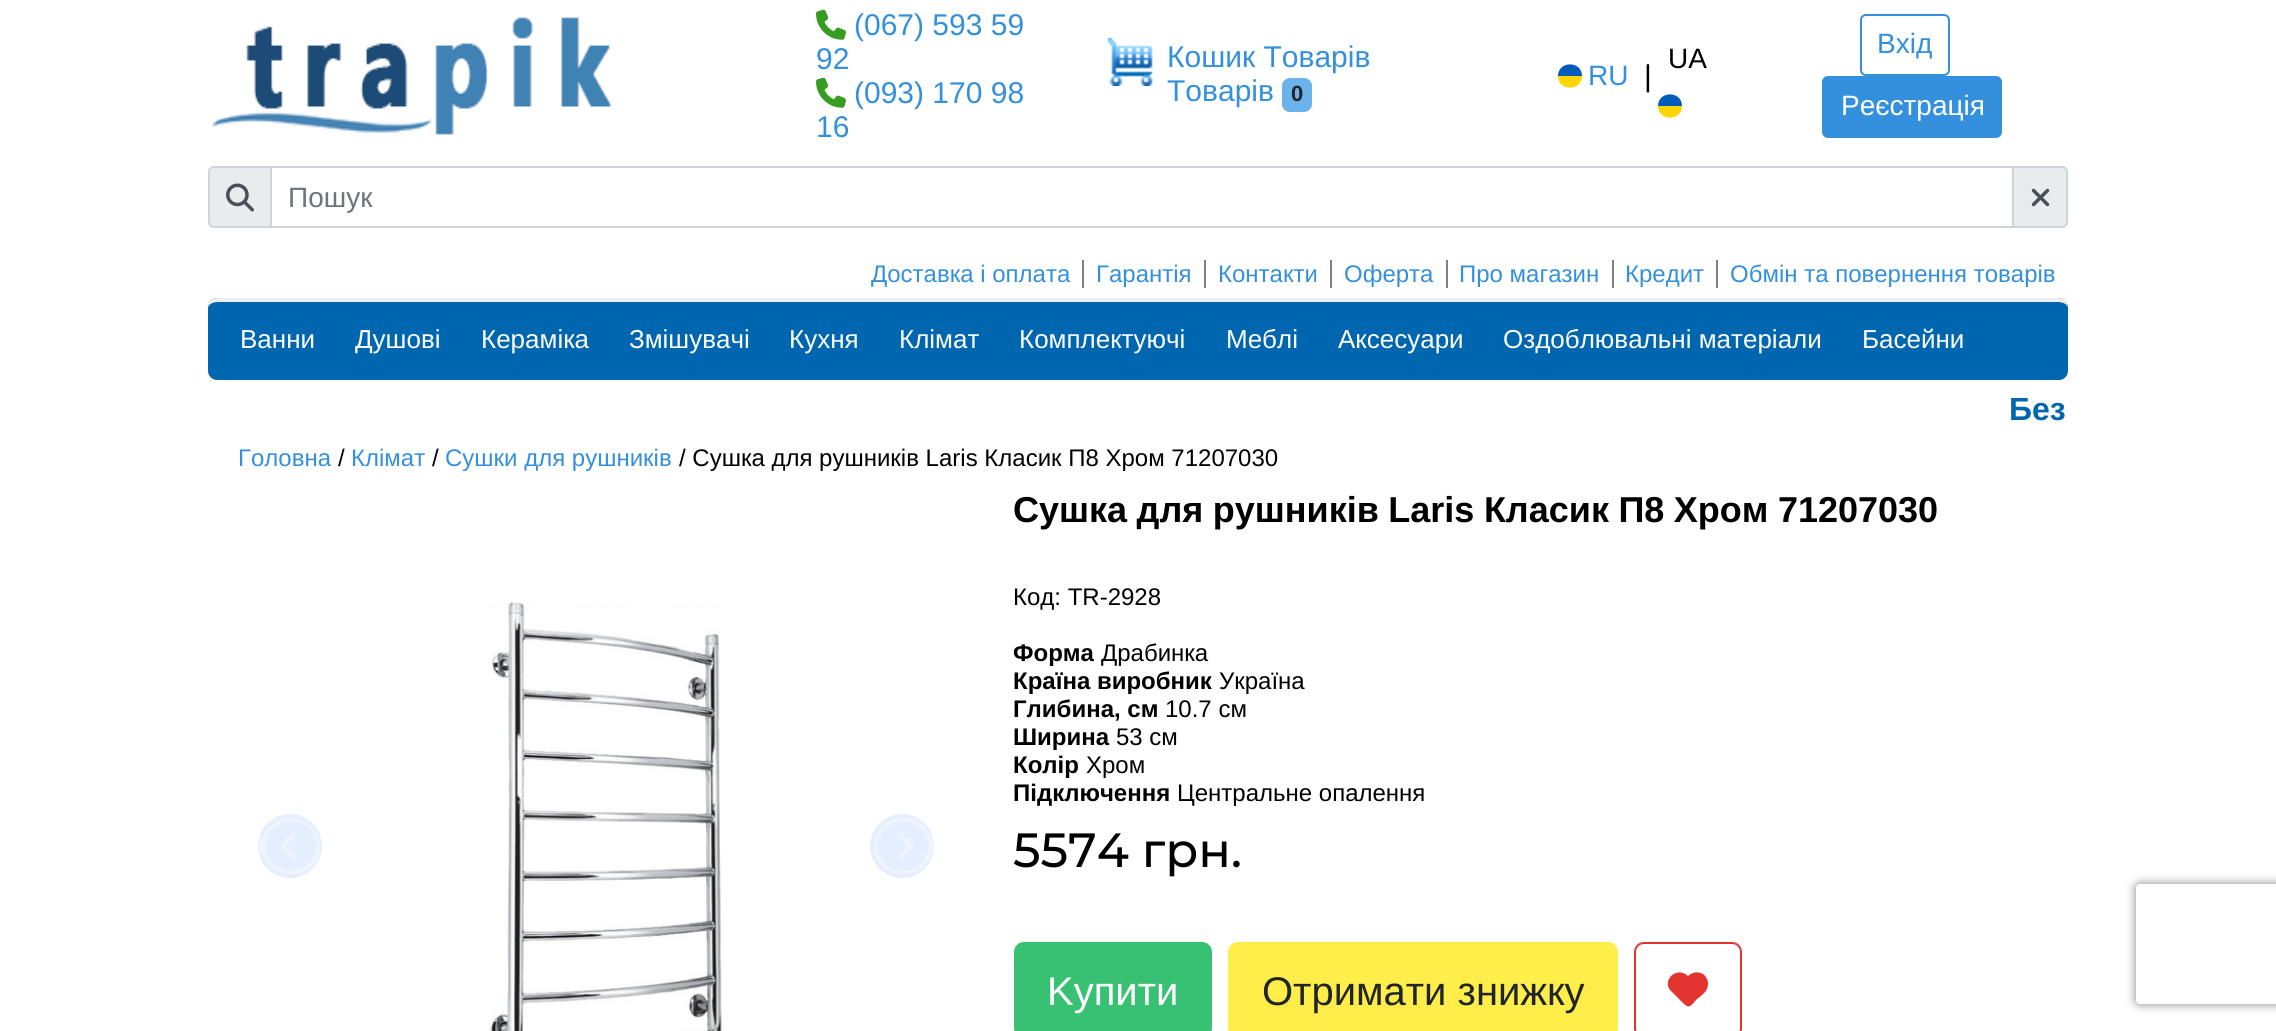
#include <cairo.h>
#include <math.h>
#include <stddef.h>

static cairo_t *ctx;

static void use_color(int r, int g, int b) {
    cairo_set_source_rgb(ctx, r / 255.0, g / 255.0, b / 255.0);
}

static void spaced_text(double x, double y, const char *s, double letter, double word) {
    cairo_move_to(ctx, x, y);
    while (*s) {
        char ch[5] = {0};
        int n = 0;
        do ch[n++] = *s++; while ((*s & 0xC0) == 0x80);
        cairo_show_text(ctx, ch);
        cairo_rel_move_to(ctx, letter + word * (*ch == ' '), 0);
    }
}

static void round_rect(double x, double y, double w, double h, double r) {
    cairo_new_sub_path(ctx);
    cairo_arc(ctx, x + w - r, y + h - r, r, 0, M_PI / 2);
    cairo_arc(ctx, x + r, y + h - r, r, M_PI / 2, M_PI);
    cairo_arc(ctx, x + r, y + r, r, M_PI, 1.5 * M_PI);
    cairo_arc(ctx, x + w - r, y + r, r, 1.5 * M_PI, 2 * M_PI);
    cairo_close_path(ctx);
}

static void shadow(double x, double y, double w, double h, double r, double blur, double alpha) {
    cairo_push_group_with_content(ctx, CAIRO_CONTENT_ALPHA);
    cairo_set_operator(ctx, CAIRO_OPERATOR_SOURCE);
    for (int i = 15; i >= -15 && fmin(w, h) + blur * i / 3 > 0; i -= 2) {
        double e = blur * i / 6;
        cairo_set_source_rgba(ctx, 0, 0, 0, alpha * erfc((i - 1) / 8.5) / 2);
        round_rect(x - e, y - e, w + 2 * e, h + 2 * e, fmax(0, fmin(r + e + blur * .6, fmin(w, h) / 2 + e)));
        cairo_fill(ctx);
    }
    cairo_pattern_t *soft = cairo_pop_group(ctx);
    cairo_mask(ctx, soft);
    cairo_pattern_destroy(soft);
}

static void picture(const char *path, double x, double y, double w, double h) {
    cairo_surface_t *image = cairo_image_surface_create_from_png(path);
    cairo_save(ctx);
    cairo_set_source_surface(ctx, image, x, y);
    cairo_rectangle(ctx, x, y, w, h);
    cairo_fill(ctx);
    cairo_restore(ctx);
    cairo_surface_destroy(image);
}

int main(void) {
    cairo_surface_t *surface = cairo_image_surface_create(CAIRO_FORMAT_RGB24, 2276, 1031);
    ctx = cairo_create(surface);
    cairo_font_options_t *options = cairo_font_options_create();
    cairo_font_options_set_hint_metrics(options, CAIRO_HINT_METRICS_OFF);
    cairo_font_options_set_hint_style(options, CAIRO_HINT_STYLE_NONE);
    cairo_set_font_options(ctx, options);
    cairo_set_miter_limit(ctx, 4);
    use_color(255, 255, 255);
    cairo_paint(ctx);
    picture("img1.png", 211, 17, 400, 118);
    picture("img2.png", 816, 9, 30, 31);
    cairo_select_font_face(ctx, "Liberation Sans", CAIRO_FONT_SLANT_NORMAL, CAIRO_FONT_WEIGHT_NORMAL);
    cairo_set_font_size(ctx, 30);
    use_color(52, 144, 220);
    cairo_move_to(ctx, 854, 35);
    cairo_show_text(ctx, "(067) 593 59");
    cairo_move_to(ctx, 816, 69);
    cairo_show_text(ctx, "92");
    picture("img2.png", 816, 77, 30, 31);
    cairo_move_to(ctx, 854, 103);
    cairo_show_text(ctx, "(093) 170 98");
    cairo_move_to(ctx, 816, 137);
    cairo_show_text(ctx, "16");
    picture("img3.png", 1107, 38, 46, 48);
    cairo_move_to(ctx, 1167, 67);
    cairo_show_text(ctx, "Кошик Товарів");
    cairo_move_to(ctx, 1167, 101);
    cairo_show_text(ctx, "Товарів");
    use_color(108, 178, 235);
    round_rect(1282, 78, 30, 34, 8);
    cairo_fill(ctx);
    cairo_select_font_face(ctx, "Liberation Sans", CAIRO_FONT_SLANT_NORMAL, CAIRO_FONT_WEIGHT_BOLD);
    cairo_set_font_size(ctx, 22);
    use_color(33, 37, 41);
    cairo_move_to(ctx, 1291, 101);
    cairo_show_text(ctx, "0");
    cairo_select_font_face(ctx, "Liberation Sans", CAIRO_FONT_SLANT_NORMAL, CAIRO_FONT_WEIGHT_NORMAL);
    cairo_set_font_size(ctx, 28);
    use_color(0, 0, 0);
    cairo_move_to(ctx, 1668, 68);
    cairo_show_text(ctx, "UA");
    use_color(0, 91, 187);
    cairo_new_path(ctx);
    cairo_move_to(ctx, 1682, 106);
    cairo_curve_to(ctx, 1682, 90.5, 1658, 90.5, 1658, 106);
    cairo_close_path(ctx);
    cairo_fill(ctx);
    use_color(255, 213, 0);
    cairo_new_path(ctx);
    cairo_move_to(ctx, 1658, 106);
    cairo_curve_to(ctx, 1658, 121.5, 1682, 121.5, 1682, 106);
    cairo_close_path(ctx);
    cairo_fill(ctx);
    use_color(0, 91, 187);
    cairo_new_path(ctx);
    cairo_move_to(ctx, 1582, 76);
    cairo_curve_to(ctx, 1582, 60.5, 1558, 60.5, 1558, 76);
    cairo_close_path(ctx);
    cairo_fill(ctx);
    use_color(255, 213, 0);
    cairo_new_path(ctx);
    cairo_move_to(ctx, 1558, 76);
    cairo_curve_to(ctx, 1558, 91.5, 1582, 91.5, 1582, 76);
    cairo_close_path(ctx);
    cairo_fill(ctx);
    use_color(52, 144, 220);
    cairo_move_to(ctx, 1588, 85);
    cairo_show_text(ctx, "RU");
    cairo_set_font_size(ctx, 30);
    use_color(0, 0, 0);
    cairo_move_to(ctx, 1644, 86);
    cairo_show_text(ctx, "|");
    round_rect(1861, 15, 88, 60, 5);
    use_color(52, 144, 220);
    cairo_stroke(ctx);
    cairo_set_font_size(ctx, 28);
    cairo_move_to(ctx, 1877, 53);
    cairo_show_text(ctx, "Вхід");
    round_rect(1823, 77, 178, 60, 5);
    cairo_fill_preserve(ctx);
    cairo_stroke(ctx);
    use_color(255, 255, 255);
    cairo_move_to(ctx, 1841, 115);
    cairo_show_text(ctx, "Реєстрація");
    use_color(233, 236, 239);
    cairo_new_path(ctx);
    cairo_move_to(ctx, 214, 167);
    cairo_line_to(ctx, 271, 167);
    cairo_line_to(ctx, 271, 227);
    cairo_line_to(ctx, 214, 227);
    cairo_curve_to(ctx, 211, 227, 209, 225, 209, 222);
    cairo_line_to(ctx, 209, 172);
    cairo_curve_to(ctx, 209, 169, 211, 167, 214, 167);
    cairo_close_path(ctx);
    cairo_fill_preserve(ctx);
    use_color(206, 212, 218);
    cairo_stroke(ctx);
    picture("img4.png", 226, 183, 28, 29);
    use_color(233, 236, 239);
    cairo_new_path(ctx);
    cairo_move_to(ctx, 2013, 167);
    cairo_line_to(ctx, 2062, 167);
    cairo_curve_to(ctx, 2065, 167, 2067, 169, 2067, 172);
    cairo_line_to(ctx, 2067, 222);
    cairo_curve_to(ctx, 2067, 225, 2065, 227, 2062, 227);
    cairo_line_to(ctx, 2013, 227);
    cairo_close_path(ctx);
    cairo_fill_preserve(ctx);
    use_color(206, 212, 218);
    cairo_stroke(ctx);
    cairo_rectangle(ctx, 271, 167, 1742, 60);
    cairo_stroke(ctx);
    use_color(108, 117, 125);
    cairo_move_to(ctx, 288, 207);
    cairo_show_text(ctx, "Пошук");
    picture("img5.png", 2031, 188, 19, 19);
    use_color(128, 128, 128);
    cairo_rectangle(ctx, 1082, 260, 2, 28);
    cairo_fill(ctx);
    cairo_set_font_size(ctx, 24);
    use_color(52, 144, 220);
    cairo_move_to(ctx, 871, 282);
    cairo_show_text(ctx, "Доставка і оплата");
    use_color(128, 128, 128);
    cairo_rectangle(ctx, 1204, 260, 2, 28);
    cairo_fill(ctx);
    use_color(52, 144, 220);
    cairo_move_to(ctx, 1096, 282);
    cairo_show_text(ctx, "Гарантія");
    use_color(128, 128, 128);
    cairo_rectangle(ctx, 1330, 260, 2, 28);
    cairo_fill(ctx);
    use_color(52, 144, 220);
    cairo_move_to(ctx, 1218, 282);
    cairo_show_text(ctx, "Контакти");
    use_color(128, 128, 128);
    cairo_rectangle(ctx, 1446, 260, 2, 28);
    cairo_fill(ctx);
    use_color(52, 144, 220);
    cairo_move_to(ctx, 1344, 282);
    cairo_show_text(ctx, "Оферта");
    use_color(128, 128, 128);
    cairo_rectangle(ctx, 1612, 260, 2, 28);
    cairo_fill(ctx);
    use_color(52, 144, 220);
    cairo_move_to(ctx, 1459, 282);
    cairo_show_text(ctx, "Про магазин");
    use_color(128, 128, 128);
    cairo_rectangle(ctx, 1716, 260, 2, 28);
    cairo_fill(ctx);
    use_color(52, 144, 220);
    cairo_move_to(ctx, 1625, 282);
    cairo_show_text(ctx, "Кредит");
    cairo_move_to(ctx, 1730, 282);
    cairo_show_text(ctx, "Обмін та повернення товарів");
    use_color(0, 102, 176);
    round_rect(208, 298, 1860, 82, 10);
    cairo_fill(ctx);
    use_color(238, 238, 238);
    cairo_new_path(ctx);
    cairo_move_to(ctx, 218, 298);
    cairo_curve_to(ctx, 212, 298, 208, 302, 208, 308);
    cairo_curve_to(ctx, 208, 305, 212, 302, 218, 302);
    cairo_line_to(ctx, 2058, 302);
    cairo_curve_to(ctx, 2064, 302, 2068, 305, 2068, 308);
    cairo_curve_to(ctx, 2068, 302, 2064, 298, 2058, 298);
    cairo_close_path(ctx);
    cairo_fill(ctx);
    use_color(0, 102, 176);
    cairo_new_path(ctx);
    cairo_move_to(ctx, 2058, 380);
    cairo_curve_to(ctx, 2064, 380, 2068, 376, 2068, 370);
    cairo_curve_to(ctx, 2068, 373, 2064, 376, 2058, 376);
    cairo_line_to(ctx, 218, 376);
    cairo_curve_to(ctx, 212, 376, 208, 373, 208, 370);
    cairo_curve_to(ctx, 208, 376, 212, 380, 218, 380);
    cairo_close_path(ctx);
    cairo_fill(ctx);
    cairo_set_font_size(ctx, 26);
    use_color(255, 255, 255);
    cairo_move_to(ctx, 240, 348);
    cairo_show_text(ctx, "Ванни");
    cairo_move_to(ctx, 355, 348);
    cairo_show_text(ctx, "Душові");
    cairo_move_to(ctx, 481, 348);
    cairo_show_text(ctx, "Кераміка");
    cairo_move_to(ctx, 629, 348);
    cairo_show_text(ctx, "Змішувачі");
    cairo_move_to(ctx, 789, 348);
    cairo_show_text(ctx, "Кухня");
    cairo_move_to(ctx, 899, 348);
    cairo_show_text(ctx, "Клімат");
    cairo_move_to(ctx, 1019, 348);
    cairo_show_text(ctx, "Комплектуючі");
    cairo_move_to(ctx, 1226, 348);
    cairo_show_text(ctx, "Меблі");
    cairo_move_to(ctx, 1338, 348);
    cairo_show_text(ctx, "Аксесуари");
    cairo_move_to(ctx, 1503, 348);
    cairo_show_text(ctx, "Оздоблювальні матеріали");
    cairo_move_to(ctx, 1862, 348);
    cairo_show_text(ctx, "Басейни");
    cairo_select_font_face(ctx, "Liberation Sans", CAIRO_FONT_SLANT_NORMAL, CAIRO_FONT_WEIGHT_BOLD);
    cairo_set_font_size(ctx, 32);
    use_color(0, 102, 176);
    cairo_move_to(ctx, 2009, 420);
    cairo_show_text(ctx, "Без");
    cairo_select_font_face(ctx, "Liberation Sans", CAIRO_FONT_SLANT_NORMAL, CAIRO_FONT_WEIGHT_NORMAL);
    cairo_set_font_size(ctx, 24);
    use_color(52, 144, 220);
    cairo_move_to(ctx, 238, 466);
    cairo_show_text(ctx, "Головна");
    use_color(0, 0, 0);
    cairo_move_to(ctx, 338, 466);
    cairo_show_text(ctx, "/");
    use_color(52, 144, 220);
    cairo_move_to(ctx, 351, 466);
    cairo_show_text(ctx, "Клімат");
    use_color(0, 0, 0);
    cairo_move_to(ctx, 432, 466);
    cairo_show_text(ctx, "/");
    use_color(52, 144, 220);
    cairo_move_to(ctx, 445, 466);
    cairo_show_text(ctx, "Сушки для рушників");
    use_color(0, 0, 0);
    cairo_move_to(ctx, 679, 466);
    cairo_show_text(ctx, "/ Сушка для рушників Laris Класик П8 Хром 71207030");
    picture("img6.png", 487, 602, 235, 429);
    use_color(229, 238, 255);
    cairo_arc(ctx, 290, 846, 32, 0, 2 * M_PI);
    cairo_fill(ctx);
    picture("img7.png", 258, 818, 62, 56);
    cairo_arc(ctx, 902, 846, 32, 0, 2 * M_PI);
    cairo_fill(ctx);
    picture("img8.png", 874, 818, 60, 56);
    cairo_select_font_face(ctx, "Liberation Sans", CAIRO_FONT_SLANT_NORMAL, CAIRO_FONT_WEIGHT_BOLD);
    cairo_set_font_size(ctx, 36);
    use_color(0, 0, 0);
    spaced_text(1013, 522, "Сушка для рушників Laris Класик П8 Хром 71207030", 0, -0.5);
    cairo_select_font_face(ctx, "Liberation Sans", CAIRO_FONT_SLANT_NORMAL, CAIRO_FONT_WEIGHT_NORMAL);
    cairo_set_font_size(ctx, 24);
    cairo_move_to(ctx, 1013, 605);
    cairo_show_text(ctx, "Код: TR-2928");
    cairo_select_font_face(ctx, "Liberation Sans", CAIRO_FONT_SLANT_NORMAL, CAIRO_FONT_WEIGHT_BOLD);
    cairo_move_to(ctx, 1013, 661);
    cairo_show_text(ctx, "Форма");
    cairo_select_font_face(ctx, "Liberation Sans", CAIRO_FONT_SLANT_NORMAL, CAIRO_FONT_WEIGHT_NORMAL);
    cairo_move_to(ctx, 1101, 661);
    cairo_show_text(ctx, "Драбинка");
    cairo_select_font_face(ctx, "Liberation Sans", CAIRO_FONT_SLANT_NORMAL, CAIRO_FONT_WEIGHT_BOLD);
    cairo_move_to(ctx, 1013, 689);
    cairo_show_text(ctx, "Країна виробник");
    cairo_select_font_face(ctx, "Liberation Sans", CAIRO_FONT_SLANT_NORMAL, CAIRO_FONT_WEIGHT_NORMAL);
    cairo_move_to(ctx, 1219, 689);
    cairo_show_text(ctx, "Україна");
    cairo_select_font_face(ctx, "Liberation Sans", CAIRO_FONT_SLANT_NORMAL, CAIRO_FONT_WEIGHT_BOLD);
    cairo_move_to(ctx, 1013, 717);
    cairo_show_text(ctx, "Глибина, см");
    cairo_select_font_face(ctx, "Liberation Sans", CAIRO_FONT_SLANT_NORMAL, CAIRO_FONT_WEIGHT_NORMAL);
    cairo_move_to(ctx, 1165, 717);
    cairo_show_text(ctx, "10.7 см");
    cairo_select_font_face(ctx, "Liberation Sans", CAIRO_FONT_SLANT_NORMAL, CAIRO_FONT_WEIGHT_BOLD);
    cairo_move_to(ctx, 1013, 745);
    cairo_show_text(ctx, "Ширина");
    cairo_select_font_face(ctx, "Liberation Sans", CAIRO_FONT_SLANT_NORMAL, CAIRO_FONT_WEIGHT_NORMAL);
    cairo_move_to(ctx, 1116, 745);
    cairo_show_text(ctx, "53 см");
    cairo_select_font_face(ctx, "Liberation Sans", CAIRO_FONT_SLANT_NORMAL, CAIRO_FONT_WEIGHT_BOLD);
    cairo_move_to(ctx, 1013, 773);
    cairo_show_text(ctx, "Колір");
    cairo_select_font_face(ctx, "Liberation Sans", CAIRO_FONT_SLANT_NORMAL, CAIRO_FONT_WEIGHT_NORMAL);
    cairo_move_to(ctx, 1086, 773);
    cairo_show_text(ctx, "Хром");
    cairo_select_font_face(ctx, "Liberation Sans", CAIRO_FONT_SLANT_NORMAL, CAIRO_FONT_WEIGHT_BOLD);
    cairo_move_to(ctx, 1013, 801);
    cairo_show_text(ctx, "Підключення");
    cairo_select_font_face(ctx, "Liberation Sans", CAIRO_FONT_SLANT_NORMAL, CAIRO_FONT_WEIGHT_NORMAL);
    cairo_move_to(ctx, 1177, 801);
    cairo_show_text(ctx, "Центральне опалення");
    cairo_select_font_face(ctx, "Montserrat Medium", CAIRO_FONT_SLANT_NORMAL, CAIRO_FONT_WEIGHT_NORMAL);
    cairo_set_font_size(ctx, 48);
    cairo_move_to(ctx, 1013, 867);
    cairo_show_text(ctx, "5574 грн.");
    use_color(56, 193, 114);
    round_rect(1015, 943, 196, 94, 9);
    cairo_fill_preserve(ctx);
    cairo_stroke(ctx);
    cairo_select_font_face(ctx, "Liberation Sans", CAIRO_FONT_SLANT_NORMAL, CAIRO_FONT_WEIGHT_NORMAL);
    cairo_set_font_size(ctx, 40);
    use_color(255, 255, 255);
    cairo_move_to(ctx, 1047, 1005);
    cairo_show_text(ctx, "Kупити");
    use_color(255, 237, 74);
    round_rect(1229, 943, 388, 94, 9);
    cairo_fill_preserve(ctx);
    cairo_stroke(ctx);
    use_color(33, 37, 41);
    cairo_move_to(ctx, 1262, 1005);
    cairo_show_text(ctx, "Отримати знижку");
    round_rect(1635, 943, 106, 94, 9);
    use_color(227, 52, 47);
    cairo_stroke(ctx);
    cairo_new_path(ctx);
    cairo_move_to(ctx, 1672, 992);
    cairo_line_to(ctx, 1683, 1003);
    cairo_curve_to(ctx, 1690, 1010, 1691, 1005, 1697, 999);
    cairo_curve_to(ctx, 1701, 996, 1705, 993, 1707, 989);
    cairo_curve_to(ctx, 1712, 976, 1698, 967, 1688, 976);
    cairo_curve_to(ctx, 1676, 965, 1660, 982, 1672, 992);
    cairo_close_path(ctx);
    cairo_fill(ctx);
    cairo_save(ctx);
    cairo_set_fill_rule(ctx, CAIRO_FILL_RULE_EVEN_ODD);
    cairo_new_path(ctx);
    cairo_move_to(ctx, 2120, 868);
    cairo_line_to(ctx, 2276, 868);
    cairo_line_to(ctx, 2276, 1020);
    cairo_line_to(ctx, 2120, 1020);
    cairo_close_path(ctx);
    cairo_move_to(ctx, 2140, 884);
    cairo_line_to(ctx, 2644, 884);
    cairo_curve_to(ctx, 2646, 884, 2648, 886, 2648, 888);
    cairo_line_to(ctx, 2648, 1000);
    cairo_curve_to(ctx, 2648, 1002, 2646, 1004, 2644, 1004);
    cairo_line_to(ctx, 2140, 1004);
    cairo_curve_to(ctx, 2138, 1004, 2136, 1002, 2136, 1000);
    cairo_line_to(ctx, 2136, 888);
    cairo_curve_to(ctx, 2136, 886, 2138, 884, 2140, 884);
    cairo_close_path(ctx);
    cairo_clip(ctx);
    use_color(128, 128, 128);
    shadow(2136, 884, 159, 120, 4, 5, 1);
    cairo_restore(ctx);
    cairo_surface_write_to_png(surface, "result.png");
    cairo_font_options_destroy(options);
    cairo_destroy(ctx);
    cairo_surface_destroy(surface);
    return 0;
}
